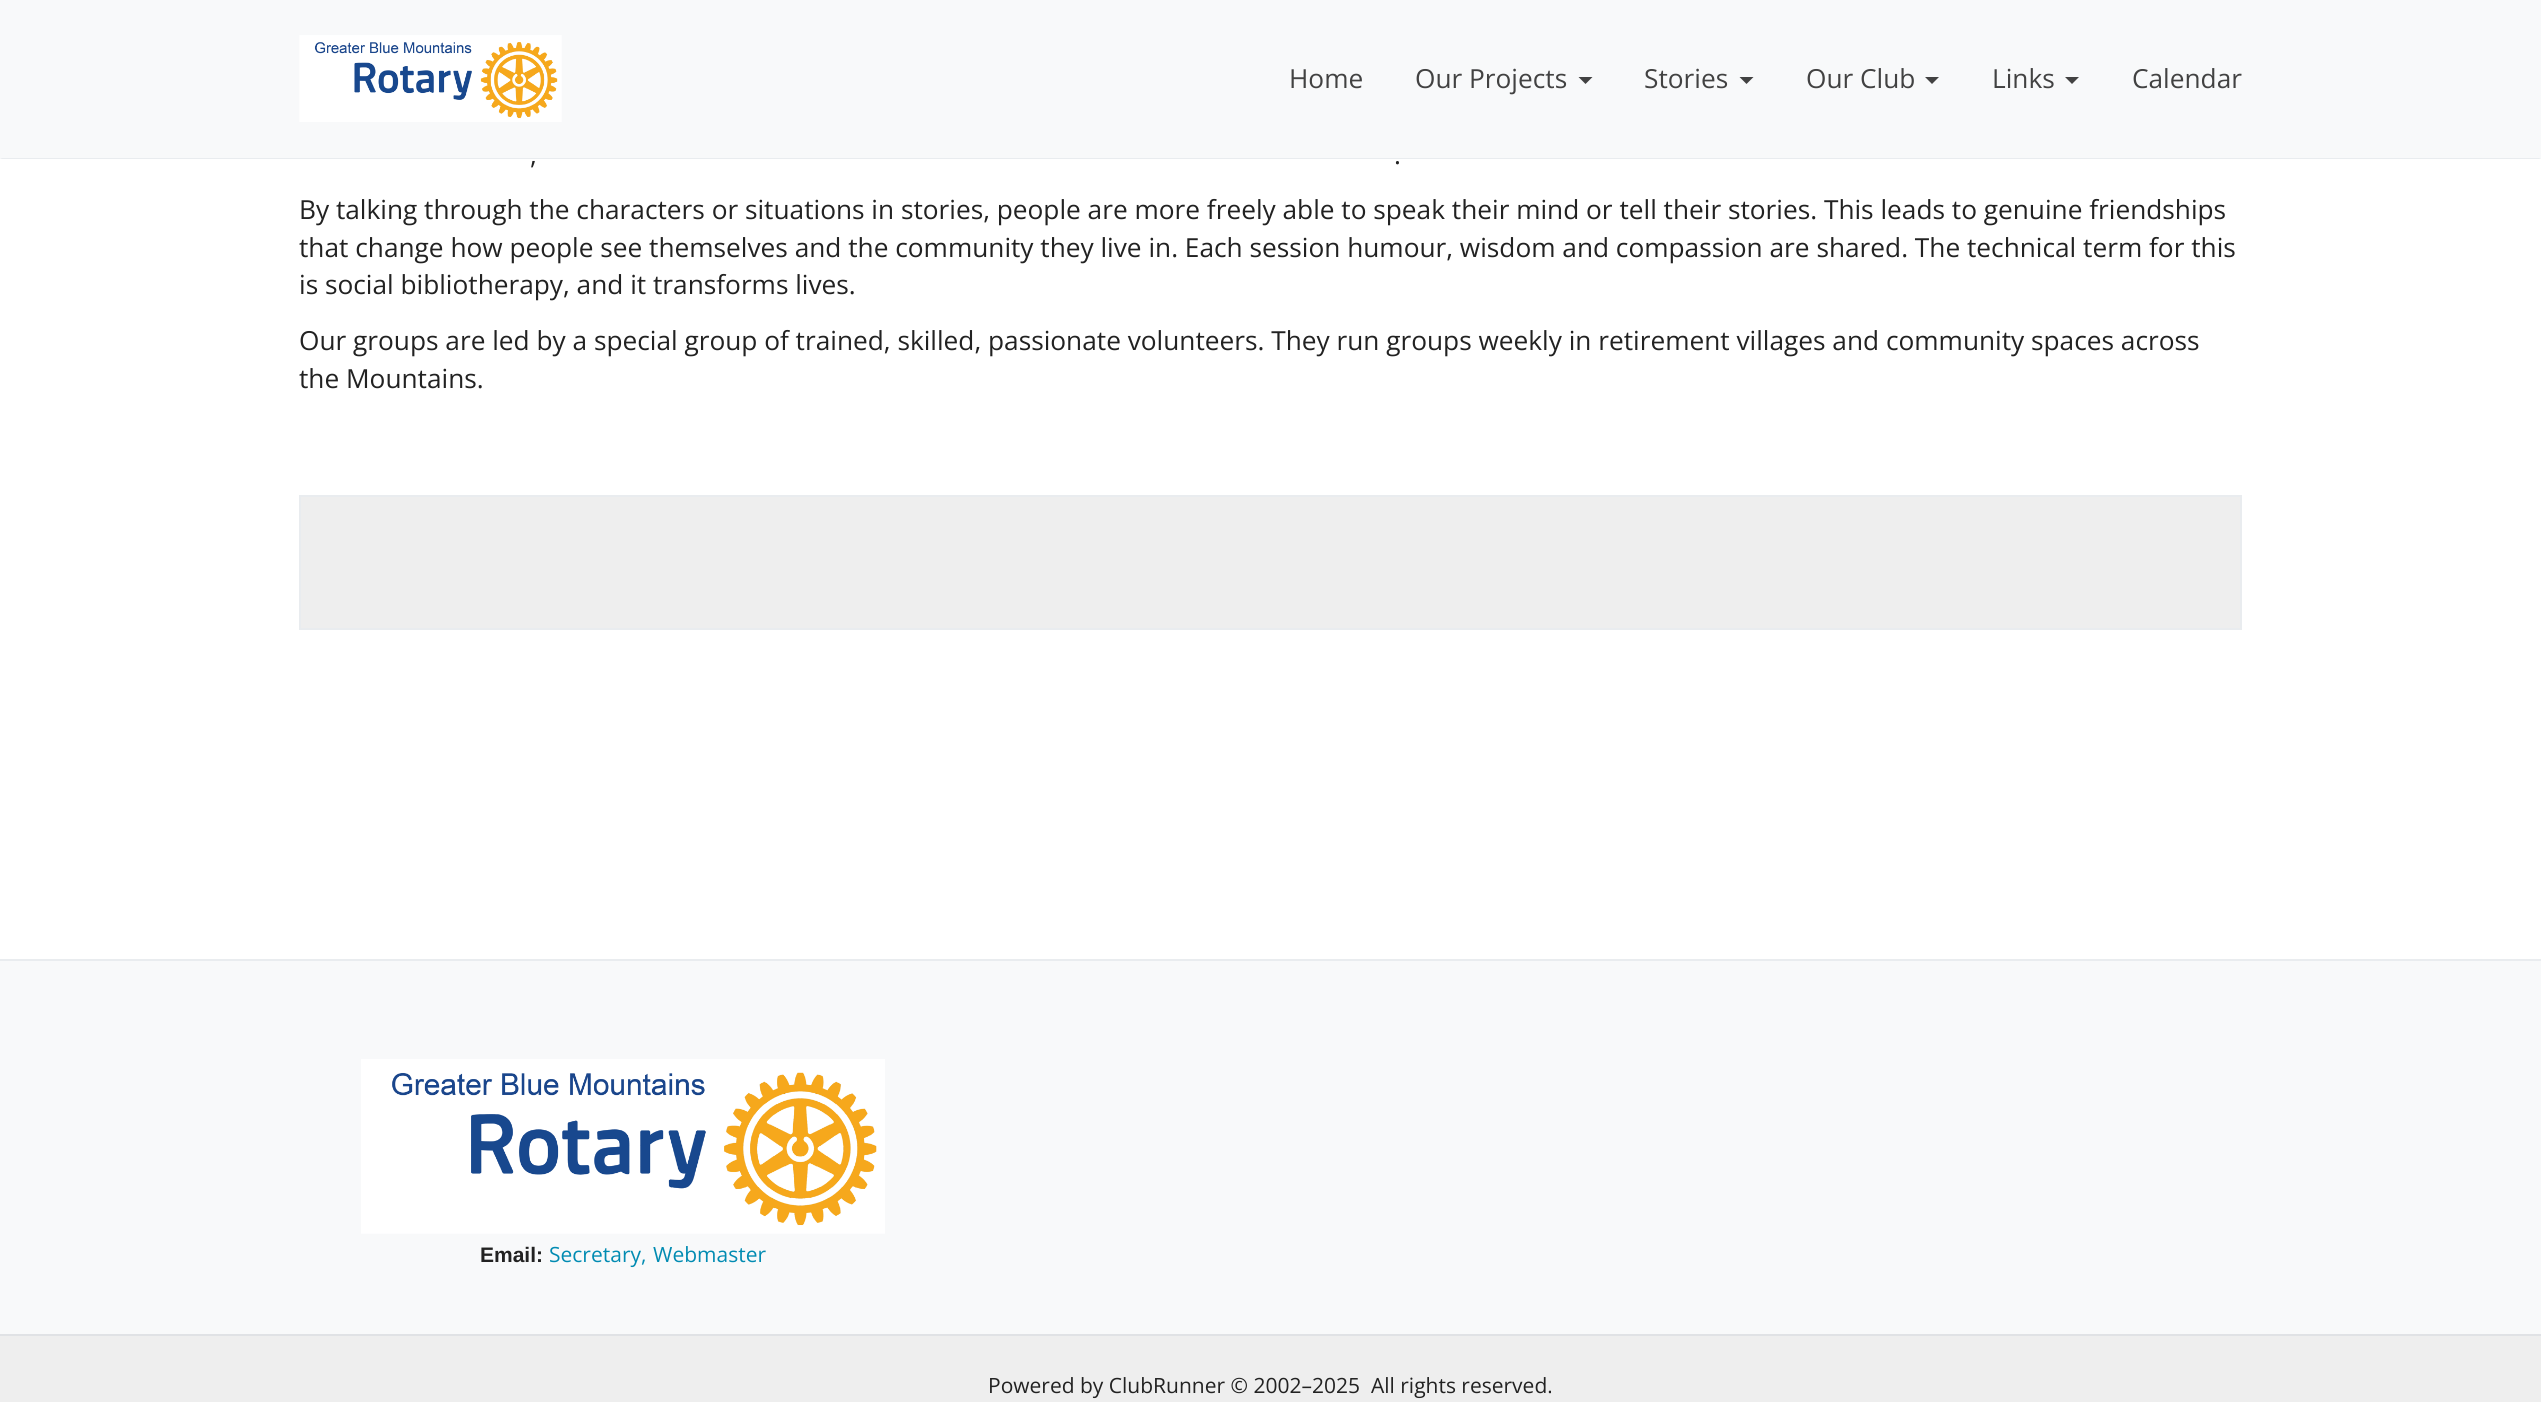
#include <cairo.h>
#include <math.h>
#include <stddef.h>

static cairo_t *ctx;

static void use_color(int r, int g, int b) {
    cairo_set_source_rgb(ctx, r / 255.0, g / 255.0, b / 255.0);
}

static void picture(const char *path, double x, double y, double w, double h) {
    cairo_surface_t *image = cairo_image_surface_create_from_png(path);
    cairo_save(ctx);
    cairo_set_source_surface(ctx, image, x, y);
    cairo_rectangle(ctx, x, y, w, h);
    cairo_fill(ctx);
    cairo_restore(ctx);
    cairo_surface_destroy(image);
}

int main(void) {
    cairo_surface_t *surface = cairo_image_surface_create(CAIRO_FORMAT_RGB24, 2541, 1402);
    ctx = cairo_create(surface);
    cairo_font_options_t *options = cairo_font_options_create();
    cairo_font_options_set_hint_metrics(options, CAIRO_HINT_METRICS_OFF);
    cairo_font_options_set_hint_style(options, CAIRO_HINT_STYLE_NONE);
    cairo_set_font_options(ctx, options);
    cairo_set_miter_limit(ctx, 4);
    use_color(255, 255, 255);
    cairo_paint(ctx);
    use_color(248, 249, 250);
    cairo_rectangle(ctx, 0, 0, 2541, 159);
    cairo_fill(ctx);
    use_color(233, 236, 239);
    cairo_new_path(ctx);
    cairo_move_to(ctx, 2541, 159);
    cairo_line_to(ctx, 0, 159);
    cairo_line_to(ctx, 2, 158);
    cairo_line_to(ctx, 2539, 158);
    cairo_close_path(ctx);
    cairo_fill(ctx);
    picture("img1.png", 299, 35, 263, 87);
    cairo_select_font_face(ctx, "Open Sans", CAIRO_FONT_SLANT_NORMAL, CAIRO_FONT_WEIGHT_NORMAL);
    cairo_set_font_size(ctx, 26.25);
    use_color(66, 66, 66);
    cairo_move_to(ctx, 1289, 88);
    cairo_show_text(ctx, "Home");
    cairo_move_to(ctx, 1415, 88);
    cairo_show_text(ctx, "Our Projects");
    cairo_new_path(ctx);
    cairo_move_to(ctx, 1578.5, 77);
    cairo_line_to(ctx, 1592.5, 77);
    cairo_line_to(ctx, 1585.5, 84);
    cairo_close_path(ctx);
    cairo_fill(ctx);
    cairo_move_to(ctx, 1644, 88);
    cairo_show_text(ctx, "Stories");
    cairo_new_path(ctx);
    cairo_move_to(ctx, 1739.5, 77);
    cairo_line_to(ctx, 1753.5, 77);
    cairo_line_to(ctx, 1746.5, 84);
    cairo_close_path(ctx);
    cairo_fill(ctx);
    cairo_move_to(ctx, 1806, 88);
    cairo_show_text(ctx, "Our Club");
    cairo_new_path(ctx);
    cairo_move_to(ctx, 1925, 77);
    cairo_line_to(ctx, 1939, 77);
    cairo_line_to(ctx, 1932, 84);
    cairo_close_path(ctx);
    cairo_fill(ctx);
    cairo_move_to(ctx, 1992, 88);
    cairo_show_text(ctx, "Links");
    cairo_new_path(ctx);
    cairo_move_to(ctx, 2065, 77);
    cairo_line_to(ctx, 2079, 77);
    cairo_line_to(ctx, 2072, 84);
    cairo_close_path(ctx);
    cairo_fill(ctx);
    cairo_move_to(ctx, 2132, 88);
    cairo_show_text(ctx, "Calendar");
    use_color(34, 34, 34);
    cairo_move_to(ctx, 530, 164);
    cairo_show_text(ctx, ",");
    cairo_move_to(ctx, 1394, 164);
    cairo_show_text(ctx, ".");
    cairo_move_to(ctx, 299, 219);
    cairo_show_text(ctx, "By talking through the characters or situations in stories, people are more freely able to speak their mind or tell their stories. This leads to genuine friendships");
    cairo_move_to(ctx, 299, 257);
    cairo_show_text(ctx, "that change how people see themselves and the community they live in. Each session humour, wisdom and compassion are shared. The technical term for this");
    cairo_move_to(ctx, 299, 294);
    cairo_show_text(ctx, "is social bibliotherapy, and it transforms lives.");
    cairo_move_to(ctx, 299, 350);
    cairo_show_text(ctx, "Our groups are led by a special group of trained, skilled, passionate volunteers. They run groups weekly in retirement villages and community spaces across");
    cairo_move_to(ctx, 299, 388);
    cairo_show_text(ctx, "the Mountains.");
    use_color(238, 238, 238);
    cairo_rectangle(ctx, 300, 496, 1941, 133);
    cairo_fill_preserve(ctx);
    use_color(233, 236, 239);
    cairo_stroke(ctx);
    use_color(238, 238, 238);
    cairo_rectangle(ctx, 0, 1336, 2541, 66);
    cairo_fill(ctx);
    use_color(248, 249, 250);
    cairo_rectangle(ctx, 0, 961, 2541, 373);
    cairo_fill(ctx);
    use_color(233, 236, 239);
    cairo_rectangle(ctx, 0, 959, 2541, 2);
    cairo_fill(ctx);
    use_color(224, 226, 229);
    cairo_rectangle(ctx, 0, 1334, 2541, 2);
    cairo_fill(ctx);
    picture("img2.png", 361, 1059, 524, 175);
    cairo_select_font_face(ctx, "Liberation Sans", CAIRO_FONT_SLANT_NORMAL, CAIRO_FONT_WEIGHT_BOLD);
    cairo_set_font_size(ctx, 21);
    use_color(34, 34, 34);
    cairo_move_to(ctx, 480, 1262);
    cairo_show_text(ctx, "Email:");
    cairo_select_font_face(ctx, "Open Sans", CAIRO_FONT_SLANT_NORMAL, CAIRO_FONT_WEIGHT_NORMAL);
    use_color(1, 139, 178);
    cairo_move_to(ctx, 549, 1262);
    cairo_show_text(ctx, "Secretary,");
    cairo_move_to(ctx, 653, 1262);
    cairo_show_text(ctx, "Webmaster");
    use_color(34, 34, 34);
    cairo_move_to(ctx, 988, 1393);
    cairo_show_text(ctx, "Powered by ClubRunner © 2002–2025  All rights reserved.");
    cairo_surface_write_to_png(surface, "result.png");
    cairo_font_options_destroy(options);
    cairo_destroy(ctx);
    cairo_surface_destroy(surface);
    return 0;
}
